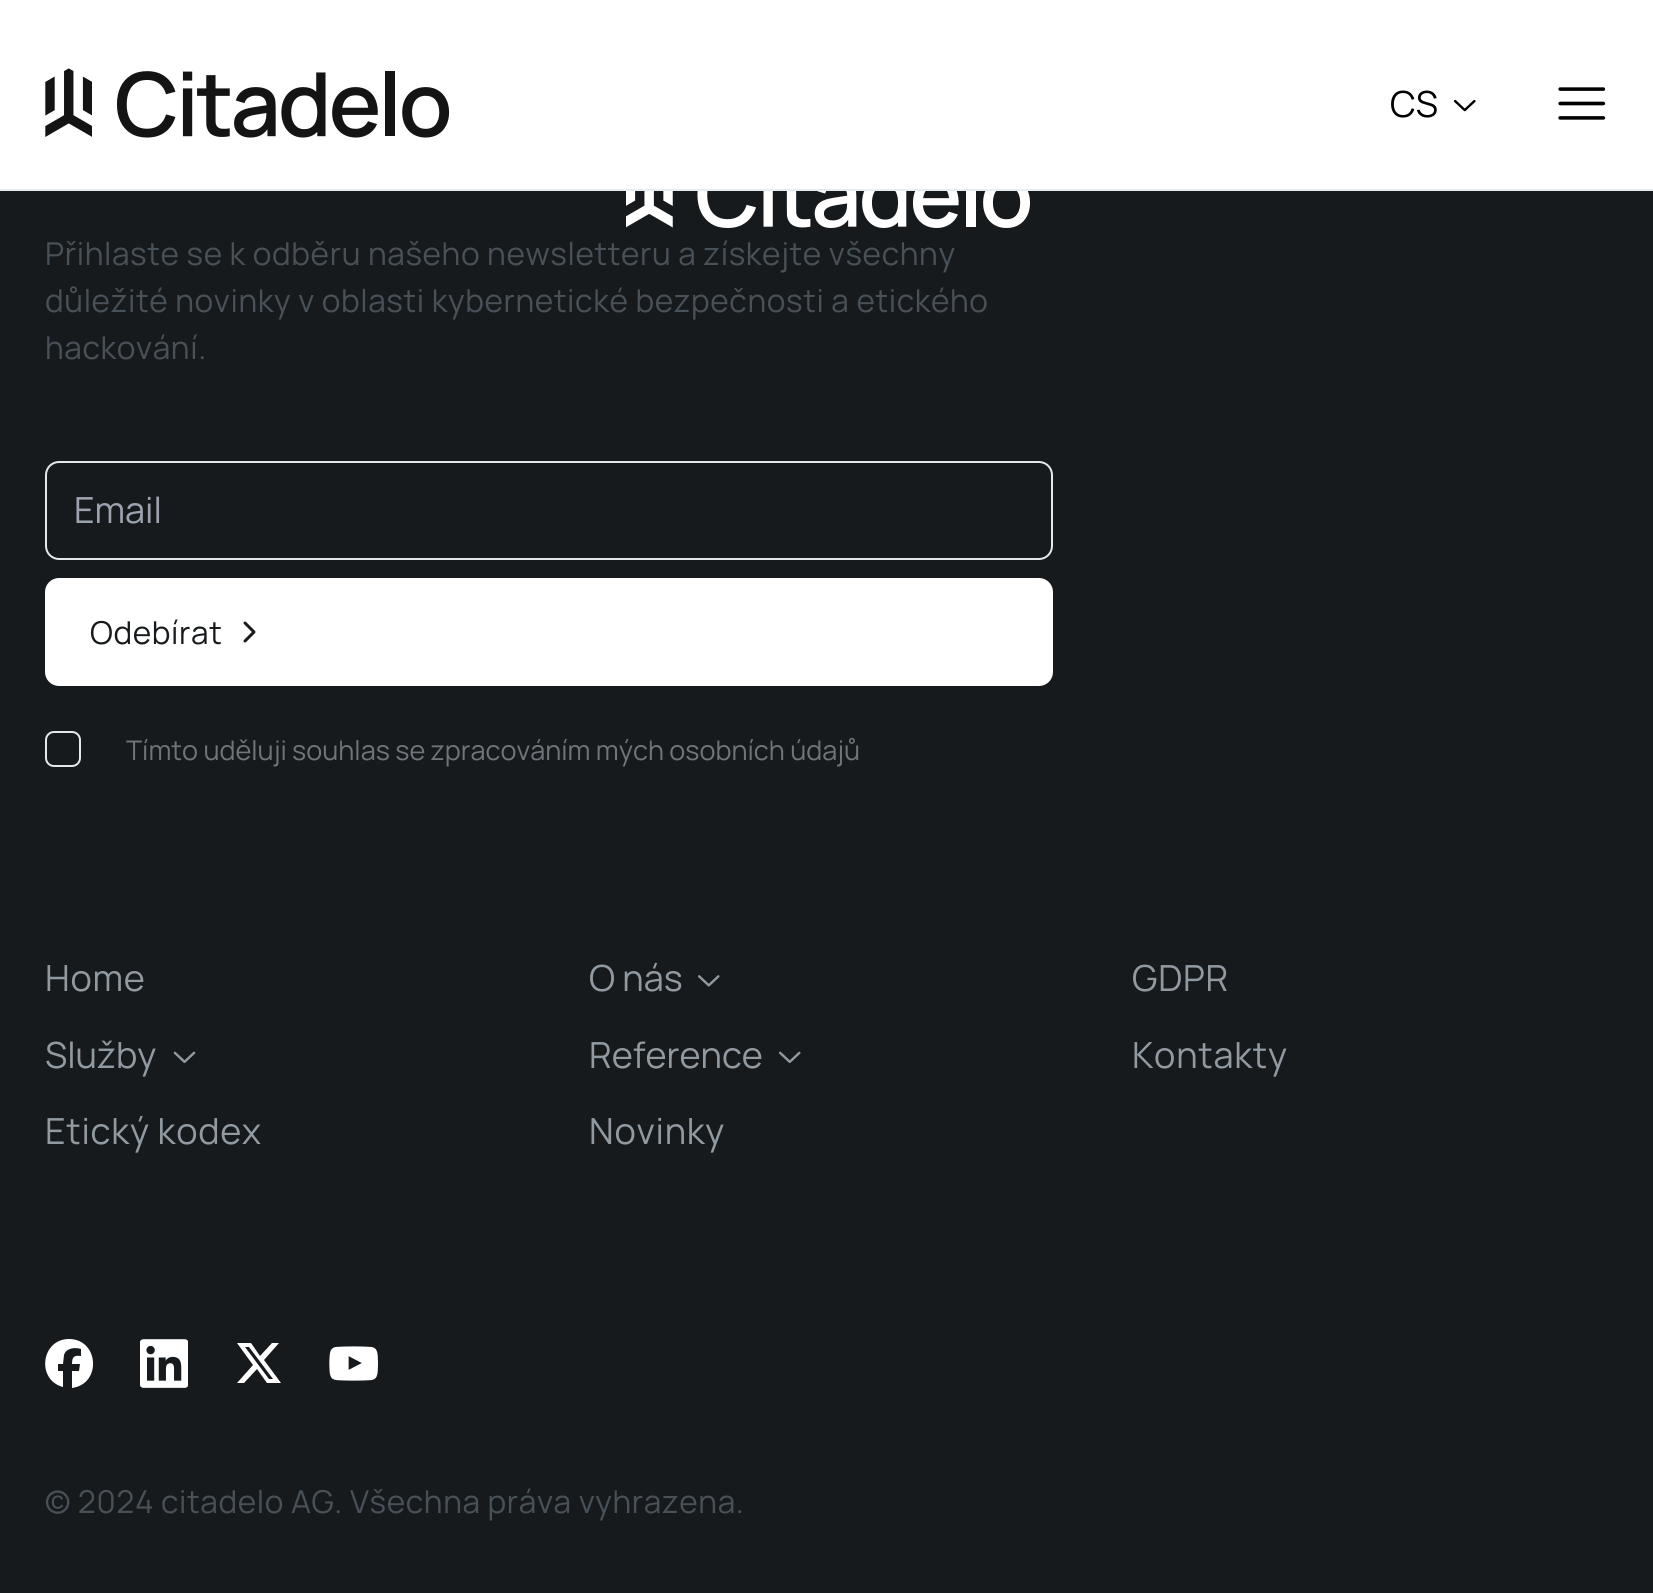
#include <cairo.h>
#include <math.h>
#include <stddef.h>

static cairo_t *ctx;

static void use_color(int r, int g, int b) {
    cairo_set_source_rgb(ctx, r / 255.0, g / 255.0, b / 255.0);
}

static void spaced_text(double x, double y, const char *s, double letter, double word) {
    cairo_move_to(ctx, x, y);
    while (*s) {
        char ch[5] = {0};
        int n = 0;
        do ch[n++] = *s++; while ((*s & 0xC0) == 0x80);
        cairo_show_text(ctx, ch);
        cairo_rel_move_to(ctx, letter + word * (*ch == ' '), 0);
    }
}

static void round_rect(double x, double y, double w, double h, double r) {
    cairo_new_sub_path(ctx);
    cairo_arc(ctx, x + w - r, y + h - r, r, 0, M_PI / 2);
    cairo_arc(ctx, x + r, y + h - r, r, M_PI / 2, M_PI);
    cairo_arc(ctx, x + r, y + r, r, M_PI, 1.5 * M_PI);
    cairo_arc(ctx, x + w - r, y + r, r, 1.5 * M_PI, 2 * M_PI);
    cairo_close_path(ctx);
}

static void picture(const char *path, double x, double y, double w, double h) {
    cairo_surface_t *image = cairo_image_surface_create_from_png(path);
    cairo_save(ctx);
    cairo_set_source_surface(ctx, image, x, y);
    cairo_rectangle(ctx, x, y, w, h);
    cairo_fill(ctx);
    cairo_restore(ctx);
    cairo_surface_destroy(image);
}

int main(void) {
    cairo_surface_t *surface = cairo_image_surface_create(CAIRO_FORMAT_RGB24, 1653, 1593);
    ctx = cairo_create(surface);
    cairo_font_options_t *options = cairo_font_options_create();
    cairo_font_options_set_hint_metrics(options, CAIRO_HINT_METRICS_OFF);
    cairo_font_options_set_hint_style(options, CAIRO_HINT_STYLE_NONE);
    cairo_set_font_options(ctx, options);
    cairo_set_miter_limit(ctx, 4);
    use_color(23, 26, 28);
    cairo_paint(ctx);
    use_color(255, 255, 255);
    cairo_rectangle(ctx, 0, 0, 1653, 189);
    cairo_fill(ctx);
    use_color(233, 236, 239);
    cairo_rectangle(ctx, 0, 189, 1653, 2);
    cairo_fill(ctx);
    picture("img1.png", 45, 68, 405, 70);
    cairo_select_font_face(ctx, "Manrope", CAIRO_FONT_SLANT_NORMAL, CAIRO_FONT_WEIGHT_NORMAL);
    cairo_set_font_size(ctx, 36);
    use_color(0, 0, 0);
    cairo_move_to(ctx, 1390, 117);
    cairo_show_text(ctx, "CS");
    picture("img2.png", 1454, 99, 22, 13);
    picture("img3.png", 1558, 87, 48, 33);
    picture("img4.png", 626, 191, 405, 37);
    cairo_set_font_size(ctx, 31.5);
    use_color(72, 80, 88);
    spaced_text(45, 265, "Přihlaste se k odběru našeho newsletteru a získejte všechny", 0.63, 0);
    spaced_text(45, 312, "důležité novinky v oblasti kybernetické bezpečnosti a etického", 0.63, 0);
    spaced_text(45, 359, "hackování.", 0.63, 0);
    round_rect(46, 462, 1006, 97, 13);
    use_color(229, 231, 235);
    cairo_stroke(ctx);
    cairo_set_font_size(ctx, 36);
    use_color(156, 163, 175);
    cairo_move_to(ctx, 74, 523);
    cairo_show_text(ctx, "Email");
    use_color(255, 255, 255);
    round_rect(45, 578, 1008, 108, 14);
    cairo_fill(ctx);
    cairo_set_font_size(ctx, 31.5);
    use_color(23, 26, 28);
    spaced_text(90, 644, "Odebírat", 0.63, 0);
    cairo_new_path(ctx);
    cairo_move_to(ctx, 245, 641);
    cairo_line_to(ctx, 254, 632);
    cairo_line_to(ctx, 245, 623);
    cairo_set_line_width(ctx, 3);
    cairo_set_line_cap(ctx, CAIRO_LINE_CAP_ROUND);
    cairo_set_line_join(ctx, CAIRO_LINE_JOIN_ROUND);
    cairo_stroke(ctx);
    round_rect(46, 732, 34, 34, 8);
    use_color(229, 231, 235);
    cairo_set_line_width(ctx, 2);
    cairo_set_line_cap(ctx, CAIRO_LINE_CAP_BUTT);
    cairo_set_line_join(ctx, CAIRO_LINE_JOIN_MITER);
    cairo_stroke(ctx);
    cairo_set_font_size(ctx, 27);
    use_color(110, 117, 123);
    cairo_move_to(ctx, 126, 760);
    cairo_show_text(ctx, "Tímto uděluji souhlas se zpracováním mých osobních údajů");
    cairo_set_font_size(ctx, 36);
    use_color(145, 153, 161);
    spaced_text(45, 991, "Home", 0.75, 0);
    cairo_move_to(ctx, 589, 991);
    cairo_show_text(ctx, "O nás");
    picture("img5.png", 698, 975, 22, 12);
    spaced_text(1132, 991, "GDPR", 0.75, 0);
    cairo_move_to(ctx, 45, 1068);
    cairo_show_text(ctx, "Služby");
    picture("img6.png", 173, 1051, 23, 12);
    cairo_move_to(ctx, 589, 1068);
    cairo_show_text(ctx, "Reference");
    picture("img7.png", 779, 1051, 22, 12);
    spaced_text(1132, 1068, "Kontakty", 0.75, 0);
    spaced_text(45, 1144, "Etický kodex", 0.75, 0);
    spaced_text(589, 1144, "Novinky", 0.75, 0);
    use_color(255, 255, 255);
    cairo_new_path(ctx);
    cairo_move_to(ctx, 69, 1339);
    cairo_curve_to(ctx, 41, 1339, 36, 1380, 63, 1387);
    cairo_line_to(ctx, 63, 1371);
    cairo_line_to(ctx, 58, 1371);
    cairo_line_to(ctx, 58, 1364);
    cairo_line_to(ctx, 63, 1364);
    cairo_line_to(ctx, 64, 1355);
    cairo_curve_to(ctx, 66, 1348, 75, 1347, 81, 1349);
    cairo_line_to(ctx, 81, 1356);
    cairo_curve_to(ctx, 74, 1355, 72, 1357, 72, 1364);
    cairo_line_to(ctx, 80, 1364);
    cairo_line_to(ctx, 79, 1371);
    cairo_line_to(ctx, 72, 1371);
    cairo_line_to(ctx, 72, 1388);
    cairo_curve_to(ctx, 102, 1384, 99, 1339, 69, 1339);
    cairo_close_path(ctx);
    cairo_fill(ctx);
    picture("img8.png", 140, 1339, 48, 49);
    cairo_new_path(ctx);
    cairo_move_to(ctx, 272, 1343);
    cairo_line_to(ctx, 279, 1343);
    cairo_line_to(ctx, 264, 1360);
    cairo_line_to(ctx, 281, 1383);
    cairo_line_to(ctx, 267, 1383);
    cairo_line_to(ctx, 257, 1369);
    cairo_line_to(ctx, 244, 1383);
    cairo_line_to(ctx, 237, 1383);
    cairo_line_to(ctx, 253, 1365);
    cairo_line_to(ctx, 237, 1343);
    cairo_line_to(ctx, 251, 1343);
    cairo_line_to(ctx, 260, 1356);
    cairo_close_path(ctx);
    cairo_move_to(ctx, 269, 1379);
    cairo_line_to(ctx, 273, 1379);
    cairo_line_to(ctx, 249, 1347);
    cairo_line_to(ctx, 245, 1347);
    cairo_close_path(ctx);
    cairo_fill(ctx);
    picture("img9.png", 329, 1346, 49, 35);
    cairo_set_font_size(ctx, 31.5);
    use_color(72, 80, 88);
    spaced_text(45, 1513, "© 2024 citadelo AG. Všechna práva vyhrazena.", 0.63, 0);
    cairo_surface_write_to_png(surface, "result.png");
    cairo_font_options_destroy(options);
    cairo_destroy(ctx);
    cairo_surface_destroy(surface);
    return 0;
}
